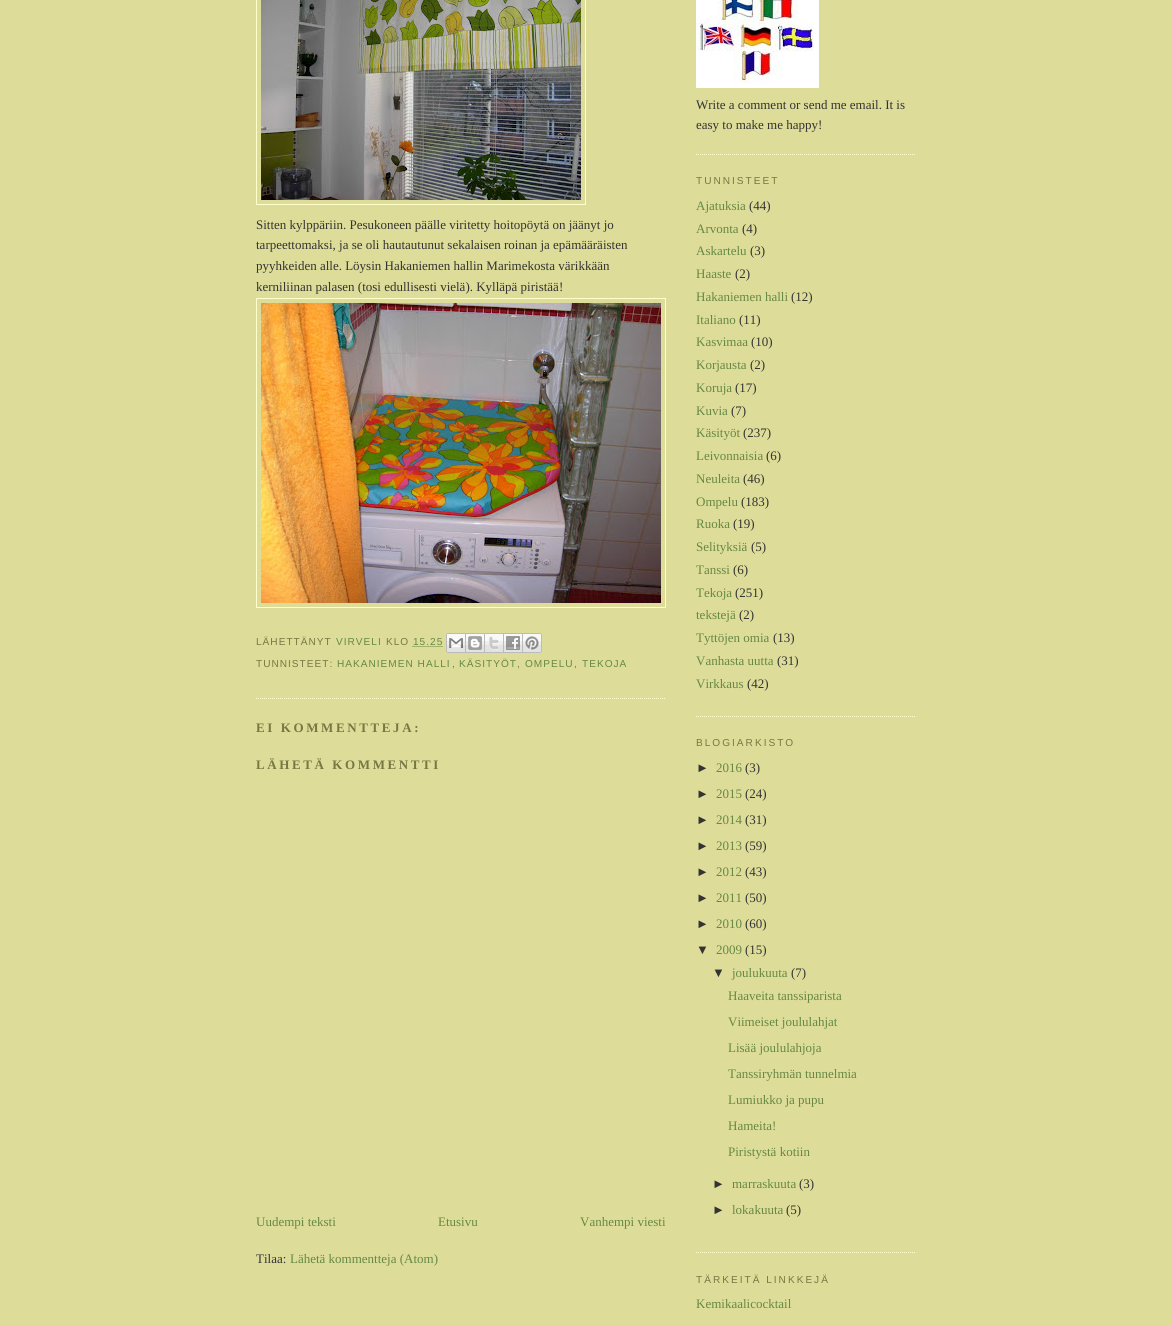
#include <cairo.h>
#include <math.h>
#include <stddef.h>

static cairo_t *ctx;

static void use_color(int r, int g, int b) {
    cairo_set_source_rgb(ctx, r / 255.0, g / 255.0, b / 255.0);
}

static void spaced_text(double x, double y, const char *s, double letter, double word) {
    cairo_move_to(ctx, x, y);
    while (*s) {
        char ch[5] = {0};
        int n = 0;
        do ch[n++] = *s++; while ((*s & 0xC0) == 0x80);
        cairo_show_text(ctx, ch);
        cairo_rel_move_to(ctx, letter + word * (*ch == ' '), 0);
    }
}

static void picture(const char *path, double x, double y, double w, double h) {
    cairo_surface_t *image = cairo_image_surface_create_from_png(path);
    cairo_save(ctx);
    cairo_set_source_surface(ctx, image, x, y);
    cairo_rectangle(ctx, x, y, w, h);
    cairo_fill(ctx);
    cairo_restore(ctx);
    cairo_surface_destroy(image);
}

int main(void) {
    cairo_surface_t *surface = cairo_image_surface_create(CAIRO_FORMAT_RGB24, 1172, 1325);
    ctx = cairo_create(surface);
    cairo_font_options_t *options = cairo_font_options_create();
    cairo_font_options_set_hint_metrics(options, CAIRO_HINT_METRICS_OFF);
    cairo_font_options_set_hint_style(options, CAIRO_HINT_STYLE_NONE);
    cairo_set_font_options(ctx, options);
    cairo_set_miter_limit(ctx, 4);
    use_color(221, 221, 153);
    cairo_paint(ctx);
    cairo_new_path(ctx);
    cairo_move_to(ctx, 256, 698.5);
    cairo_line_to(ctx, 666, 698.5);
    use_color(255, 255, 204);
    cairo_set_line_width(ctx, 1);
    cairo_set_dash(ctx, (double[]){1, 1}, 2, 0);
    cairo_stroke(ctx);
    cairo_rectangle(ctx, 256.5, -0.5, 329, 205);
    cairo_set_dash(ctx, NULL, 0, 0);
    cairo_stroke(ctx);
    picture("img1.png", 261, 0, 320, 200);
    cairo_select_font_face(ctx, "Liberation Serif", CAIRO_FONT_SLANT_NORMAL, CAIRO_FONT_WEIGHT_NORMAL);
    cairo_set_font_size(ctx, 13);
    use_color(51, 51, 51);
    cairo_move_to(ctx, 256, 229);
    cairo_show_text(ctx, "Sitten kylppäriin. Pesukoneen päälle viritetty hoitopöytä on jäänyt jo");
    cairo_move_to(ctx, 256, 249);
    cairo_show_text(ctx, "tarpeettomaksi, ja se oli hautautunut sekalaisen roinan ja epämääräisten");
    cairo_move_to(ctx, 256, 270);
    cairo_show_text(ctx, "pyyhkeiden alle. Löysin Hakaniemen hallin Marimekosta värikkään");
    cairo_move_to(ctx, 256, 291);
    cairo_show_text(ctx, "kerniliinan palasen (tosi edullisesti vielä). Kylläpä piristää!");
    cairo_rectangle(ctx, 256.5, 298.5, 409, 309);
    use_color(255, 255, 204);
    cairo_stroke(ctx);
    picture("img2.png", 261, 303, 400, 300);
    cairo_select_font_face(ctx, "Liberation Sans", CAIRO_FONT_SLANT_NORMAL, CAIRO_FONT_WEIGHT_NORMAL);
    cairo_set_font_size(ctx, 10.1);
    use_color(119, 119, 68);
    spaced_text(256, 645, "LÄHETTÄNYT", 1, 0);
    use_color(102, 136, 68);
    spaced_text(336, 645, "VIRVELI", 1, 0);
    use_color(119, 119, 68);
    spaced_text(386, 645, "KLO", 1, 0);
    use_color(102, 136, 68);
    spaced_text(413, 645, "15.25", 1, 0);
    cairo_new_path(ctx);
    cairo_move_to(ctx, 412.5, 646.5);
    cairo_line_to(ctx, 443, 646.5);
    cairo_set_dash(ctx, (double[]){1, 1}, 2, 0);
    cairo_stroke(ctx);
    picture("img3.png", 446, 633, 20, 20);
    picture("img4.png", 466, 633, 19, 20);
    picture("img5.png", 485, 633, 19, 20);
    picture("img6.png", 504, 633, 19, 20);
    picture("img7.png", 523, 633, 19, 20);
    use_color(119, 119, 68);
    spaced_text(256, 667, "TUNNISTEET:", 1, 0);
    use_color(102, 136, 68);
    spaced_text(337, 667, "HAKANIEMEN HALLI", 1, 0);
    use_color(119, 119, 68);
    spaced_text(452, 667, ",", 1, 0);
    use_color(102, 136, 68);
    spaced_text(459, 667, "KÄSITYÖT", 1, 0);
    use_color(119, 119, 68);
    spaced_text(517, 667, ",", 1, 0);
    use_color(102, 136, 68);
    spaced_text(525, 667, "OMPELU", 1, 0);
    use_color(119, 119, 68);
    spaced_text(574, 667, ",", 1, 0);
    use_color(102, 136, 68);
    spaced_text(582, 667, "TEKOJA", 1, 0);
    cairo_select_font_face(ctx, "Liberation Serif", CAIRO_FONT_SLANT_NORMAL, CAIRO_FONT_WEIGHT_BOLD);
    cairo_set_font_size(ctx, 13);
    use_color(119, 119, 68);
    spaced_text(256, 732, "EI KOMMENTTEJA:", 2.6, 0);
    spaced_text(256, 769, "LÄHETÄ KOMMENTTI", 2.6, 0);
    cairo_select_font_face(ctx, "Liberation Serif", CAIRO_FONT_SLANT_NORMAL, CAIRO_FONT_WEIGHT_NORMAL);
    use_color(102, 136, 68);
    cairo_move_to(ctx, 256, 1226);
    cairo_show_text(ctx, "Uudempi teksti");
    cairo_move_to(ctx, 438, 1226);
    cairo_show_text(ctx, "Etusivu");
    cairo_move_to(ctx, 580, 1226);
    cairo_show_text(ctx, "Vanhempi viesti");
    use_color(51, 51, 51);
    cairo_move_to(ctx, 256, 1263);
    cairo_show_text(ctx, "Tilaa:");
    use_color(102, 136, 68);
    cairo_move_to(ctx, 290, 1263);
    cairo_show_text(ctx, "Lähetä kommentteja (Atom)");
    cairo_new_path(ctx);
    cairo_move_to(ctx, 696, 154.5);
    cairo_line_to(ctx, 916, 154.5);
    use_color(255, 255, 204);
    cairo_stroke(ctx);
    picture("img8.png", 696, 0, 123, 88);
    use_color(51, 51, 51);
    cairo_move_to(ctx, 696, 109);
    cairo_show_text(ctx, "Write a comment or send me email. It is");
    cairo_move_to(ctx, 696, 129);
    cairo_show_text(ctx, "easy to make me happy!");
    cairo_new_path(ctx);
    cairo_move_to(ctx, 696, 716.5);
    cairo_line_to(ctx, 916, 716.5);
    use_color(255, 255, 204);
    cairo_stroke(ctx);
    cairo_select_font_face(ctx, "Liberation Sans", CAIRO_FONT_SLANT_NORMAL, CAIRO_FONT_WEIGHT_NORMAL);
    cairo_set_font_size(ctx, 10.1);
    use_color(119, 119, 68);
    spaced_text(696, 184, "TUNNISTEET", 2, 0);
    cairo_select_font_face(ctx, "Liberation Serif", CAIRO_FONT_SLANT_NORMAL, CAIRO_FONT_WEIGHT_NORMAL);
    cairo_set_font_size(ctx, 13);
    use_color(102, 136, 68);
    cairo_move_to(ctx, 696, 210);
    cairo_show_text(ctx, "Ajatuksia");
    use_color(51, 51, 51);
    cairo_move_to(ctx, 749, 210);
    cairo_show_text(ctx, "(44)");
    use_color(102, 136, 68);
    cairo_move_to(ctx, 696, 233);
    cairo_show_text(ctx, "Arvonta");
    use_color(51, 51, 51);
    cairo_move_to(ctx, 742, 233);
    cairo_show_text(ctx, "(4)");
    use_color(102, 136, 68);
    cairo_move_to(ctx, 696, 255);
    cairo_show_text(ctx, "Askartelu");
    use_color(51, 51, 51);
    cairo_move_to(ctx, 750, 255);
    cairo_show_text(ctx, "(3)");
    use_color(102, 136, 68);
    cairo_move_to(ctx, 696, 278);
    cairo_show_text(ctx, "Haaste");
    use_color(51, 51, 51);
    cairo_move_to(ctx, 735, 278);
    cairo_show_text(ctx, "(2)");
    use_color(102, 136, 68);
    cairo_move_to(ctx, 696, 301);
    cairo_show_text(ctx, "Hakaniemen halli");
    use_color(51, 51, 51);
    cairo_move_to(ctx, 791, 301);
    cairo_show_text(ctx, "(12)");
    use_color(102, 136, 68);
    cairo_move_to(ctx, 696, 324);
    cairo_show_text(ctx, "Italiano");
    use_color(51, 51, 51);
    cairo_move_to(ctx, 739, 324);
    cairo_show_text(ctx, "(11)");
    use_color(102, 136, 68);
    cairo_move_to(ctx, 696, 346);
    cairo_show_text(ctx, "Kasvimaa");
    use_color(51, 51, 51);
    cairo_move_to(ctx, 751, 346);
    cairo_show_text(ctx, "(10)");
    use_color(102, 136, 68);
    cairo_move_to(ctx, 696, 369);
    cairo_show_text(ctx, "Korjausta");
    use_color(51, 51, 51);
    cairo_move_to(ctx, 750, 369);
    cairo_show_text(ctx, "(2)");
    use_color(102, 136, 68);
    cairo_move_to(ctx, 696, 392);
    cairo_show_text(ctx, "Koruja");
    use_color(51, 51, 51);
    cairo_move_to(ctx, 735, 392);
    cairo_show_text(ctx, "(17)");
    use_color(102, 136, 68);
    cairo_move_to(ctx, 696, 415);
    cairo_show_text(ctx, "Kuvia");
    use_color(51, 51, 51);
    cairo_move_to(ctx, 731, 415);
    cairo_show_text(ctx, "(7)");
    use_color(102, 136, 68);
    cairo_move_to(ctx, 696, 437);
    cairo_show_text(ctx, "Käsityöt");
    use_color(51, 51, 51);
    cairo_move_to(ctx, 743, 437);
    cairo_show_text(ctx, "(237)");
    use_color(102, 136, 68);
    cairo_move_to(ctx, 696, 460);
    cairo_show_text(ctx, "Leivonnaisia");
    use_color(51, 51, 51);
    cairo_move_to(ctx, 766, 460);
    cairo_show_text(ctx, "(6)");
    use_color(102, 136, 68);
    cairo_move_to(ctx, 696, 483);
    cairo_show_text(ctx, "Neuleita");
    use_color(51, 51, 51);
    cairo_move_to(ctx, 743, 483);
    cairo_show_text(ctx, "(46)");
    use_color(102, 136, 68);
    cairo_move_to(ctx, 696, 506);
    cairo_show_text(ctx, "Ompelu");
    use_color(51, 51, 51);
    cairo_move_to(ctx, 741, 506);
    cairo_show_text(ctx, "(183)");
    use_color(102, 136, 68);
    cairo_move_to(ctx, 696, 528);
    cairo_show_text(ctx, "Ruoka");
    use_color(51, 51, 51);
    cairo_move_to(ctx, 733, 528);
    cairo_show_text(ctx, "(19)");
    use_color(102, 136, 68);
    cairo_move_to(ctx, 696, 551);
    cairo_show_text(ctx, "Selityksiä");
    use_color(51, 51, 51);
    cairo_move_to(ctx, 751, 551);
    cairo_show_text(ctx, "(5)");
    use_color(102, 136, 68);
    cairo_move_to(ctx, 696, 574);
    cairo_show_text(ctx, "Tanssi");
    use_color(51, 51, 51);
    cairo_move_to(ctx, 733, 574);
    cairo_show_text(ctx, "(6)");
    use_color(102, 136, 68);
    cairo_move_to(ctx, 696, 597);
    cairo_show_text(ctx, "Tekoja");
    use_color(51, 51, 51);
    cairo_move_to(ctx, 735, 597);
    cairo_show_text(ctx, "(251)");
    use_color(102, 136, 68);
    cairo_move_to(ctx, 696, 619);
    cairo_show_text(ctx, "tekstejä");
    use_color(51, 51, 51);
    cairo_move_to(ctx, 739, 619);
    cairo_show_text(ctx, "(2)");
    use_color(102, 136, 68);
    cairo_move_to(ctx, 696, 642);
    cairo_show_text(ctx, "Tyttöjen omia");
    use_color(51, 51, 51);
    cairo_move_to(ctx, 773, 642);
    cairo_show_text(ctx, "(13)");
    use_color(102, 136, 68);
    cairo_move_to(ctx, 696, 665);
    cairo_show_text(ctx, "Vanhasta uutta");
    use_color(51, 51, 51);
    cairo_move_to(ctx, 777, 665);
    cairo_show_text(ctx, "(31)");
    use_color(102, 136, 68);
    cairo_move_to(ctx, 696, 688);
    cairo_show_text(ctx, "Virkkaus");
    use_color(51, 51, 51);
    cairo_move_to(ctx, 747, 688);
    cairo_show_text(ctx, "(42)");
    cairo_new_path(ctx);
    cairo_move_to(ctx, 696, 1252.5);
    cairo_line_to(ctx, 916, 1252.5);
    use_color(255, 255, 204);
    cairo_stroke(ctx);
    cairo_select_font_face(ctx, "Liberation Sans", CAIRO_FONT_SLANT_NORMAL, CAIRO_FONT_WEIGHT_NORMAL);
    cairo_set_font_size(ctx, 10.1);
    use_color(119, 119, 68);
    spaced_text(696, 746, "BLOGIARKISTO", 2, 0);
    cairo_set_font_size(ctx, 13);
    use_color(51, 51, 51);
    cairo_move_to(ctx, 696, 772);
    cairo_show_text(ctx, "►");
    cairo_select_font_face(ctx, "Liberation Serif", CAIRO_FONT_SLANT_NORMAL, CAIRO_FONT_WEIGHT_NORMAL);
    use_color(102, 136, 68);
    cairo_move_to(ctx, 716, 772);
    cairo_show_text(ctx, "2016");
    use_color(51, 51, 51);
    cairo_move_to(ctx, 745, 772);
    cairo_show_text(ctx, "(3)");
    cairo_select_font_face(ctx, "Liberation Sans", CAIRO_FONT_SLANT_NORMAL, CAIRO_FONT_WEIGHT_NORMAL);
    cairo_move_to(ctx, 696, 798);
    cairo_show_text(ctx, "►");
    cairo_select_font_face(ctx, "Liberation Serif", CAIRO_FONT_SLANT_NORMAL, CAIRO_FONT_WEIGHT_NORMAL);
    use_color(102, 136, 68);
    cairo_move_to(ctx, 716, 798);
    cairo_show_text(ctx, "2015");
    use_color(51, 51, 51);
    cairo_move_to(ctx, 745, 798);
    cairo_show_text(ctx, "(24)");
    cairo_select_font_face(ctx, "Liberation Sans", CAIRO_FONT_SLANT_NORMAL, CAIRO_FONT_WEIGHT_NORMAL);
    cairo_move_to(ctx, 696, 824);
    cairo_show_text(ctx, "►");
    cairo_select_font_face(ctx, "Liberation Serif", CAIRO_FONT_SLANT_NORMAL, CAIRO_FONT_WEIGHT_NORMAL);
    use_color(102, 136, 68);
    cairo_move_to(ctx, 716, 824);
    cairo_show_text(ctx, "2014");
    use_color(51, 51, 51);
    cairo_move_to(ctx, 745, 824);
    cairo_show_text(ctx, "(31)");
    cairo_select_font_face(ctx, "Liberation Sans", CAIRO_FONT_SLANT_NORMAL, CAIRO_FONT_WEIGHT_NORMAL);
    cairo_move_to(ctx, 696, 850);
    cairo_show_text(ctx, "►");
    cairo_select_font_face(ctx, "Liberation Serif", CAIRO_FONT_SLANT_NORMAL, CAIRO_FONT_WEIGHT_NORMAL);
    use_color(102, 136, 68);
    cairo_move_to(ctx, 716, 850);
    cairo_show_text(ctx, "2013");
    use_color(51, 51, 51);
    cairo_move_to(ctx, 745, 850);
    cairo_show_text(ctx, "(59)");
    cairo_select_font_face(ctx, "Liberation Sans", CAIRO_FONT_SLANT_NORMAL, CAIRO_FONT_WEIGHT_NORMAL);
    cairo_move_to(ctx, 696, 876);
    cairo_show_text(ctx, "►");
    cairo_select_font_face(ctx, "Liberation Serif", CAIRO_FONT_SLANT_NORMAL, CAIRO_FONT_WEIGHT_NORMAL);
    use_color(102, 136, 68);
    cairo_move_to(ctx, 716, 876);
    cairo_show_text(ctx, "2012");
    use_color(51, 51, 51);
    cairo_move_to(ctx, 745, 876);
    cairo_show_text(ctx, "(43)");
    cairo_select_font_face(ctx, "Liberation Sans", CAIRO_FONT_SLANT_NORMAL, CAIRO_FONT_WEIGHT_NORMAL);
    cairo_move_to(ctx, 696, 902);
    cairo_show_text(ctx, "►");
    cairo_select_font_face(ctx, "Liberation Serif", CAIRO_FONT_SLANT_NORMAL, CAIRO_FONT_WEIGHT_NORMAL);
    use_color(102, 136, 68);
    cairo_move_to(ctx, 716, 902);
    cairo_show_text(ctx, "2011");
    use_color(51, 51, 51);
    cairo_move_to(ctx, 745, 902);
    cairo_show_text(ctx, "(50)");
    cairo_select_font_face(ctx, "Liberation Sans", CAIRO_FONT_SLANT_NORMAL, CAIRO_FONT_WEIGHT_NORMAL);
    cairo_move_to(ctx, 696, 928);
    cairo_show_text(ctx, "►");
    cairo_select_font_face(ctx, "Liberation Serif", CAIRO_FONT_SLANT_NORMAL, CAIRO_FONT_WEIGHT_NORMAL);
    use_color(102, 136, 68);
    cairo_move_to(ctx, 716, 928);
    cairo_show_text(ctx, "2010");
    use_color(51, 51, 51);
    cairo_move_to(ctx, 745, 928);
    cairo_show_text(ctx, "(60)");
    cairo_select_font_face(ctx, "Liberation Sans", CAIRO_FONT_SLANT_NORMAL, CAIRO_FONT_WEIGHT_NORMAL);
    cairo_move_to(ctx, 696, 954);
    cairo_show_text(ctx, "▼");
    cairo_select_font_face(ctx, "Liberation Serif", CAIRO_FONT_SLANT_NORMAL, CAIRO_FONT_WEIGHT_NORMAL);
    use_color(102, 136, 68);
    cairo_move_to(ctx, 716, 954);
    cairo_show_text(ctx, "2009");
    use_color(51, 51, 51);
    cairo_move_to(ctx, 745, 954);
    cairo_show_text(ctx, "(15)");
    cairo_select_font_face(ctx, "Liberation Sans", CAIRO_FONT_SLANT_NORMAL, CAIRO_FONT_WEIGHT_NORMAL);
    cairo_move_to(ctx, 712, 977);
    cairo_show_text(ctx, "▼");
    cairo_select_font_face(ctx, "Liberation Serif", CAIRO_FONT_SLANT_NORMAL, CAIRO_FONT_WEIGHT_NORMAL);
    use_color(102, 136, 68);
    cairo_move_to(ctx, 732, 977);
    cairo_show_text(ctx, "joulukuuta");
    use_color(51, 51, 51);
    cairo_move_to(ctx, 791, 977);
    cairo_show_text(ctx, "(7)");
    use_color(102, 136, 68);
    cairo_move_to(ctx, 728, 1000);
    cairo_show_text(ctx, "Haaveita tanssiparista");
    cairo_move_to(ctx, 728, 1026);
    cairo_show_text(ctx, "Viimeiset joululahjat");
    cairo_move_to(ctx, 728, 1052);
    cairo_show_text(ctx, "Lisää joululahjoja");
    cairo_move_to(ctx, 728, 1078);
    cairo_show_text(ctx, "Tanssiryhmän tunnelmia");
    cairo_move_to(ctx, 728, 1104);
    cairo_show_text(ctx, "Lumiukko ja pupu");
    cairo_move_to(ctx, 728, 1130);
    cairo_show_text(ctx, "Hameita!");
    cairo_move_to(ctx, 728, 1156);
    cairo_show_text(ctx, "Piristystä kotiin");
    cairo_select_font_face(ctx, "Liberation Sans", CAIRO_FONT_SLANT_NORMAL, CAIRO_FONT_WEIGHT_NORMAL);
    use_color(51, 51, 51);
    cairo_move_to(ctx, 712, 1188);
    cairo_show_text(ctx, "►");
    cairo_select_font_face(ctx, "Liberation Serif", CAIRO_FONT_SLANT_NORMAL, CAIRO_FONT_WEIGHT_NORMAL);
    use_color(102, 136, 68);
    cairo_move_to(ctx, 732, 1188);
    cairo_show_text(ctx, "marraskuuta");
    use_color(51, 51, 51);
    cairo_move_to(ctx, 799, 1188);
    cairo_show_text(ctx, "(3)");
    cairo_select_font_face(ctx, "Liberation Sans", CAIRO_FONT_SLANT_NORMAL, CAIRO_FONT_WEIGHT_NORMAL);
    cairo_move_to(ctx, 712, 1214);
    cairo_show_text(ctx, "►");
    cairo_select_font_face(ctx, "Liberation Serif", CAIRO_FONT_SLANT_NORMAL, CAIRO_FONT_WEIGHT_NORMAL);
    use_color(102, 136, 68);
    cairo_move_to(ctx, 732, 1214);
    cairo_show_text(ctx, "lokakuuta");
    use_color(51, 51, 51);
    cairo_move_to(ctx, 786, 1214);
    cairo_show_text(ctx, "(5)");
    cairo_select_font_face(ctx, "Liberation Sans", CAIRO_FONT_SLANT_NORMAL, CAIRO_FONT_WEIGHT_NORMAL);
    cairo_set_font_size(ctx, 10.1);
    use_color(119, 119, 68);
    spaced_text(696, 1283, "TÄRKEITÄ LINKKEJÄ", 2, 0);
    cairo_select_font_face(ctx, "Liberation Serif", CAIRO_FONT_SLANT_NORMAL, CAIRO_FONT_WEIGHT_NORMAL);
    cairo_set_font_size(ctx, 13);
    use_color(102, 136, 68);
    cairo_move_to(ctx, 696, 1308);
    cairo_show_text(ctx, "Kemikaalicocktail");
    cairo_surface_write_to_png(surface, "result.png");
    cairo_font_options_destroy(options);
    cairo_destroy(ctx);
    cairo_surface_destroy(surface);
    return 0;
}
